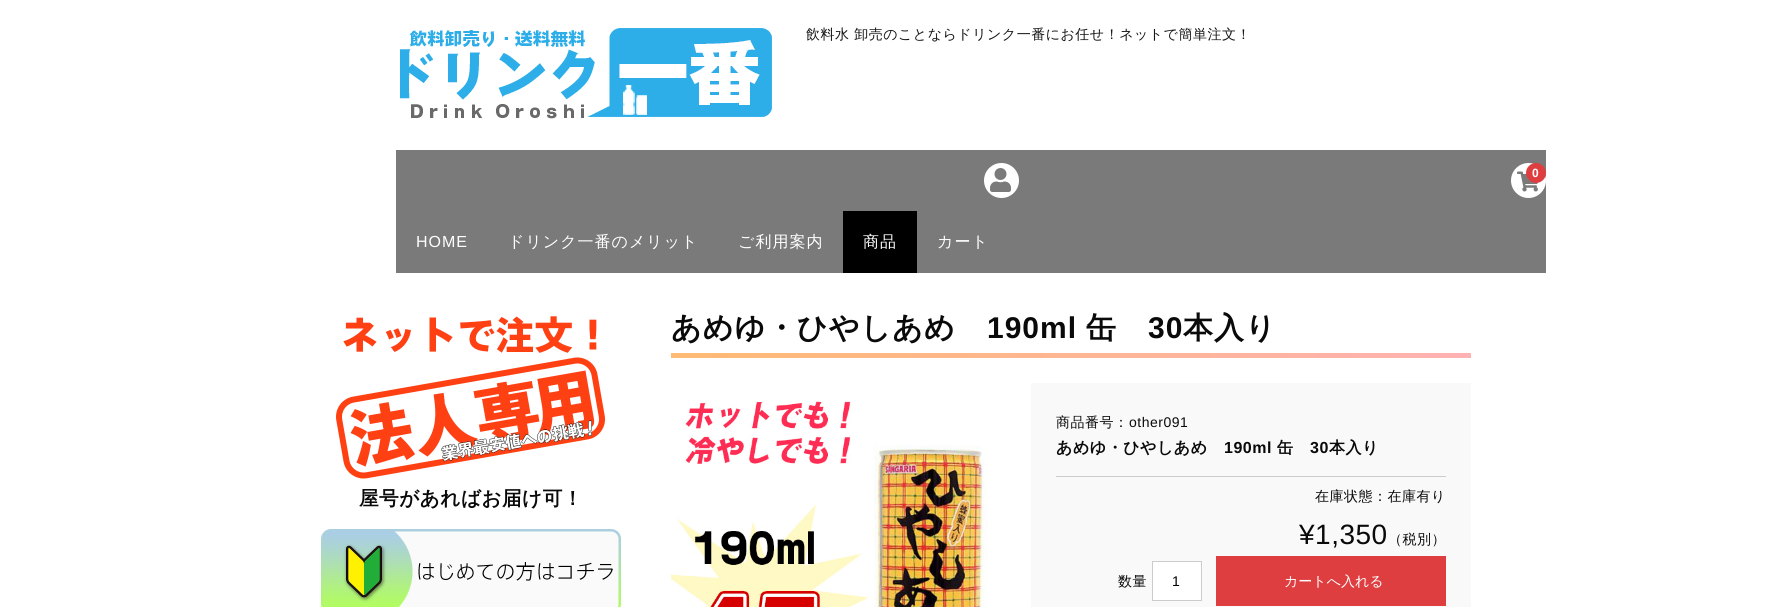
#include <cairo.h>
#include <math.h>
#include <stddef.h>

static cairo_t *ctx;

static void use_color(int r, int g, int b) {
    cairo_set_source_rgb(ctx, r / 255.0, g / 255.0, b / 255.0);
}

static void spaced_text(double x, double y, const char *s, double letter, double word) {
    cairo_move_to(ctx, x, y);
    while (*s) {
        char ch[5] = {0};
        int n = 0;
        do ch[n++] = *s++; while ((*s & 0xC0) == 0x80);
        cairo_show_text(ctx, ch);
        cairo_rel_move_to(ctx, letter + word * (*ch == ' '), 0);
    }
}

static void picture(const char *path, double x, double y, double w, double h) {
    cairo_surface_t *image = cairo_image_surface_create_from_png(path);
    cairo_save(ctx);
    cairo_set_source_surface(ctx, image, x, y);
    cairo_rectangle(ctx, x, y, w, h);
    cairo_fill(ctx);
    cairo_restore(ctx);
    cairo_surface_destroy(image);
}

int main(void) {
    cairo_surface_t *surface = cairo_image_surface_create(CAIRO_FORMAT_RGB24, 1792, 607);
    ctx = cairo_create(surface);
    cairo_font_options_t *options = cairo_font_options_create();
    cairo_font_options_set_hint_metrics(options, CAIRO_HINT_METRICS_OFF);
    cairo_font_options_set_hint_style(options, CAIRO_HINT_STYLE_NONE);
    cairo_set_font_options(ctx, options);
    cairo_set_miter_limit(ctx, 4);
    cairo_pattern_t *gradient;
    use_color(255, 255, 255);
    cairo_paint(ctx);
    picture("img1.png", 400, 28, 372, 91);
    cairo_select_font_face(ctx, "WenQuanYi Zen Hei Medium", CAIRO_FONT_SLANT_NORMAL, CAIRO_FONT_WEIGHT_NORMAL);
    cairo_set_font_size(ctx, 14);
    use_color(22, 22, 22);
    spaced_text(806, 39, "飲料水 卸売のことならドリンク一番にお任せ！ネットで簡単注文！", 0.5, 0);
    use_color(122, 122, 122);
    cairo_rectangle(ctx, 396, 150, 1150, 123);
    cairo_fill(ctx);
    use_color(255, 255, 255);
    cairo_arc(ctx, 1528.5, 180.5, 17.5, 0, 2 * M_PI);
    cairo_fill(ctx);
    picture("img2.png", 1517, 171, 21, 21);
    use_color(223, 62, 65);
    cairo_arc(ctx, 1536, 173, 10, 0, 2 * M_PI);
    cairo_fill(ctx);
    cairo_select_font_face(ctx, "Liberation Sans", CAIRO_FONT_SLANT_NORMAL, CAIRO_FONT_WEIGHT_BOLD);
    cairo_set_font_size(ctx, 12);
    use_color(255, 255, 255);
    spaced_text(1532, 177, "0", 1, 0);
    cairo_new_path(ctx);
    cairo_arc(ctx, 1001.5, 180.5, 17.5, 0, 2 * M_PI);
    cairo_fill(ctx);
    picture("img3.png", 990, 168, 21, 24);
    cairo_select_font_face(ctx, "Liberation Sans", CAIRO_FONT_SLANT_NORMAL, CAIRO_FONT_WEIGHT_NORMAL);
    cairo_set_font_size(ctx, 16);
    spaced_text(416, 247, "HOME", 1, 0);
    cairo_select_font_face(ctx, "WenQuanYi Zen Hei Medium", CAIRO_FONT_SLANT_NORMAL, CAIRO_FONT_WEIGHT_NORMAL);
    spaced_text(508, 247, "ドリンク一番のメリット", 1, 0);
    spaced_text(738, 247, "ご利用案内", 1, 0);
    use_color(0, 0, 0);
    cairo_rectangle(ctx, 843, 211, 74, 62);
    cairo_fill(ctx);
    use_color(255, 255, 255);
    spaced_text(863, 247, "商品", 1, 0);
    spaced_text(937, 247, "カート", 1, 0);
    picture("img4.png", 336, 316, 269, 163);
    cairo_select_font_face(ctx, "WenQuanYi Zen Hei", CAIRO_FONT_SLANT_NORMAL, CAIRO_FONT_WEIGHT_BOLD);
    cairo_set_font_size(ctx, 19.6);
    use_color(10, 10, 10);
    spaced_text(359, 505, "屋号があればお届け可！", 0.5, 0);
    picture("img5.png", 321, 529, 300, 78);
    cairo_set_font_size(ctx, 30);
    spaced_text(671, 338, "あめゆ・ひやしあめ", 1, 0);
    cairo_select_font_face(ctx, "Liberation Sans", CAIRO_FONT_SLANT_NORMAL, CAIRO_FONT_WEIGHT_BOLD);
    spaced_text(987, 338, "190ml", 1, 0);
    cairo_select_font_face(ctx, "WenQuanYi Zen Hei", CAIRO_FONT_SLANT_NORMAL, CAIRO_FONT_WEIGHT_BOLD);
    spaced_text(1086, 338, "缶", 1, 0);
    cairo_select_font_face(ctx, "Liberation Sans", CAIRO_FONT_SLANT_NORMAL, CAIRO_FONT_WEIGHT_BOLD);
    spaced_text(1148, 338, "30", 1, 0);
    cairo_select_font_face(ctx, "WenQuanYi Zen Hei", CAIRO_FONT_SLANT_NORMAL, CAIRO_FONT_WEIGHT_BOLD);
    spaced_text(1183, 338, "本入り", 1, 0);
    gradient = cairo_pattern_create_linear(671, 356, 1471, 356);
    cairo_pattern_add_color_stop_rgba(gradient, 0, 1, 0.729, 0.451, 1);
    cairo_pattern_add_color_stop_rgba(gradient, 1, 1, 0.698, 0.698, 1);
    cairo_set_source(ctx, gradient);
    cairo_pattern_destroy(gradient);
    cairo_rectangle(ctx, 671, 353, 800, 5);
    cairo_fill(ctx);
    picture("img6.png", 671, 401, 317, 206);
    use_color(249, 249, 249);
    cairo_rectangle(ctx, 1031, 383, 440, 224);
    cairo_fill(ctx);
    cairo_select_font_face(ctx, "WenQuanYi Zen Hei Medium", CAIRO_FONT_SLANT_NORMAL, CAIRO_FONT_WEIGHT_NORMAL);
    cairo_set_font_size(ctx, 14);
    use_color(10, 10, 10);
    spaced_text(1056, 427, "商品番号：", 0.5, 0);
    cairo_select_font_face(ctx, "Liberation Sans", CAIRO_FONT_SLANT_NORMAL, CAIRO_FONT_WEIGHT_NORMAL);
    spaced_text(1129, 427, "other091", 0.5, 0);
    cairo_select_font_face(ctx, "WenQuanYi Zen Hei", CAIRO_FONT_SLANT_NORMAL, CAIRO_FONT_WEIGHT_BOLD);
    cairo_set_font_size(ctx, 16);
    spaced_text(1056, 453, "あめゆ・ひやしあめ", 0.5, 0);
    cairo_select_font_face(ctx, "Liberation Sans", CAIRO_FONT_SLANT_NORMAL, CAIRO_FONT_WEIGHT_BOLD);
    spaced_text(1224, 453, "190ml", 0.5, 0);
    cairo_select_font_face(ctx, "WenQuanYi Zen Hei", CAIRO_FONT_SLANT_NORMAL, CAIRO_FONT_WEIGHT_BOLD);
    spaced_text(1277, 453, "缶", 0.5, 0);
    cairo_select_font_face(ctx, "Liberation Sans", CAIRO_FONT_SLANT_NORMAL, CAIRO_FONT_WEIGHT_BOLD);
    spaced_text(1310, 453, "30", 0.5, 0);
    cairo_select_font_face(ctx, "WenQuanYi Zen Hei", CAIRO_FONT_SLANT_NORMAL, CAIRO_FONT_WEIGHT_BOLD);
    spaced_text(1329, 453, "本入り", 0.5, 0);
    use_color(204, 204, 204);
    cairo_rectangle(ctx, 1056, 476, 390, 1);
    cairo_fill(ctx);
    cairo_select_font_face(ctx, "WenQuanYi Zen Hei Medium", CAIRO_FONT_SLANT_NORMAL, CAIRO_FONT_WEIGHT_NORMAL);
    cairo_set_font_size(ctx, 14);
    use_color(10, 10, 10);
    spaced_text(1315, 501, "在庫状態：在庫有り", 0.5, 0);
    cairo_select_font_face(ctx, "Liberation Sans", CAIRO_FONT_SLANT_NORMAL, CAIRO_FONT_WEIGHT_NORMAL);
    cairo_set_font_size(ctx, 28);
    spaced_text(1299, 544, "¥1,350", 0.5, 0);
    cairo_select_font_face(ctx, "WenQuanYi Zen Hei Medium", CAIRO_FONT_SLANT_NORMAL, CAIRO_FONT_WEIGHT_NORMAL);
    cairo_set_font_size(ctx, 14);
    spaced_text(1388, 544, "（税別）", 0.5, 0);
    spaced_text(1118, 586, "数量", 0.5, 0);
    use_color(255, 255, 255);
    cairo_rectangle(ctx, 1152.5, 561.5, 49, 39);
    cairo_fill_preserve(ctx);
    use_color(204, 204, 204);
    cairo_set_line_width(ctx, 1);
    cairo_stroke(ctx);
    cairo_select_font_face(ctx, "Liberation Sans", CAIRO_FONT_SLANT_NORMAL, CAIRO_FONT_WEIGHT_NORMAL);
    use_color(0, 0, 0);
    spaced_text(1172, 586, "1", 1, 0);
    use_color(223, 62, 65);
    cairo_rectangle(ctx, 1216, 556, 230, 50);
    cairo_fill(ctx);
    cairo_select_font_face(ctx, "WenQuanYi Zen Hei Medium", CAIRO_FONT_SLANT_NORMAL, CAIRO_FONT_WEIGHT_NORMAL);
    use_color(255, 255, 255);
    cairo_move_to(ctx, 1284, 586);
    cairo_show_text(ctx, "カートへ入れる");
    cairo_surface_write_to_png(surface, "result.png");
    cairo_font_options_destroy(options);
    cairo_destroy(ctx);
    cairo_surface_destroy(surface);
    return 0;
}
